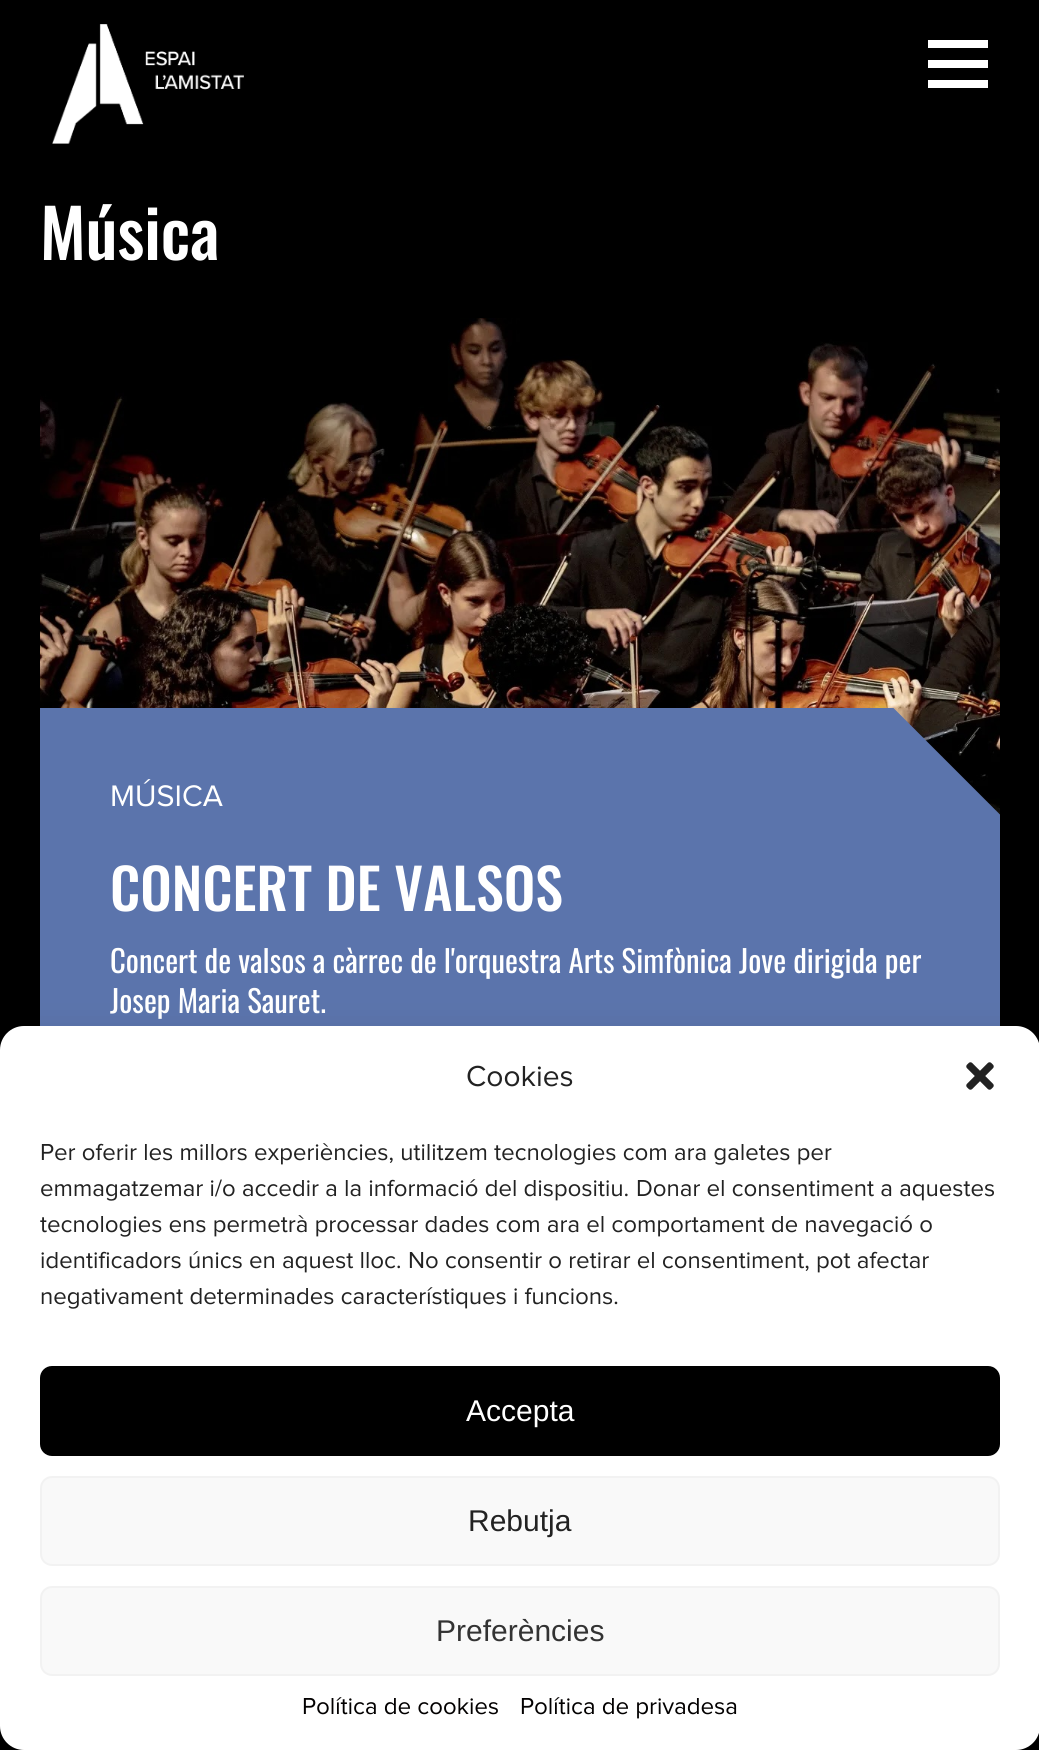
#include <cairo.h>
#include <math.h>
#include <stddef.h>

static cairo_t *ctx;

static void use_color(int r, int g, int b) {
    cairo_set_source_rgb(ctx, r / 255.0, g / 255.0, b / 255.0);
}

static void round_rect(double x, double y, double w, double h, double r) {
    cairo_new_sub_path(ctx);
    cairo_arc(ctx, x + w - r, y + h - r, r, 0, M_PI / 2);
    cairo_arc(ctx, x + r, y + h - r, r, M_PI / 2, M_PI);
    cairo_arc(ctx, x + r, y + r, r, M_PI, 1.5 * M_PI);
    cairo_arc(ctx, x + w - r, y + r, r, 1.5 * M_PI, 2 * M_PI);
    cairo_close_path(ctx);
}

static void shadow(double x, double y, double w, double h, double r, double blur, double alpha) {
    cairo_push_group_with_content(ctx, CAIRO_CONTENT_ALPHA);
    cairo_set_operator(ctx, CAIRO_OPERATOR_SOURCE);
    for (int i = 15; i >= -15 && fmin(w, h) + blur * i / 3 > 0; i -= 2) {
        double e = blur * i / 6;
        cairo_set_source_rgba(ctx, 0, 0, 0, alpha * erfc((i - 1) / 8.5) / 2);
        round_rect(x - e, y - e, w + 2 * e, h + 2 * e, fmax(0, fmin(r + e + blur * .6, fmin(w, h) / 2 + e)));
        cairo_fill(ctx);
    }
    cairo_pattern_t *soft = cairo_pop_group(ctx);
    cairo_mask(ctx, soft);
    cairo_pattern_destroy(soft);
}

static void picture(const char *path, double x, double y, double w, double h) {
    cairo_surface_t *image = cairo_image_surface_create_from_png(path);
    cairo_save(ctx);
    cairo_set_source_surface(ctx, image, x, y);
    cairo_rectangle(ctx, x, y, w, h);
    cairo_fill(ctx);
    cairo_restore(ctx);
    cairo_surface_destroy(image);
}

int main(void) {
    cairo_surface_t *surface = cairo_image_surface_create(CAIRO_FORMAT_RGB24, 1039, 1750);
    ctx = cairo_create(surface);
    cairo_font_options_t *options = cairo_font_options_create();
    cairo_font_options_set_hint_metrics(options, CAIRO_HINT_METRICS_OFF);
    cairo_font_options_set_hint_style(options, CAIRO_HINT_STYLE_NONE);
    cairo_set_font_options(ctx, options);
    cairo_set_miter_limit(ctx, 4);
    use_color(0, 0, 0);
    cairo_paint(ctx);
    picture("img1.png", 52, 24, 192, 120);
    use_color(255, 255, 255);
    cairo_rectangle(ctx, 928, 40, 60, 8);
    cairo_fill(ctx);
    cairo_rectangle(ctx, 928, 60, 60, 8);
    cairo_fill(ctx);
    cairo_rectangle(ctx, 928, 80, 60, 8);
    cairo_fill(ctx);
    cairo_select_font_face(ctx, "Oswald Medium", CAIRO_FONT_SLANT_NORMAL, CAIRO_FONT_WEIGHT_NORMAL);
    cairo_set_font_size(ctx, 67);
    cairo_move_to(ctx, 40, 260);
    cairo_show_text(ctx, "Música");
    picture("img2.png", 40, 318, 960, 497);
    cairo_save(ctx);
    cairo_rectangle(ctx, 40, 708, 960, 562);
    cairo_clip(ctx);
    use_color(91, 116, 172);
    cairo_new_path(ctx);
    cairo_move_to(ctx, -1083, -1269);
    cairo_line_to(ctx, 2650, 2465);
    cairo_line_to(ctx, 463, 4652);
    cairo_line_to(ctx, -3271, 919);
    cairo_close_path(ctx);
    cairo_fill(ctx);
    cairo_restore(ctx);
    picture("img3.png", 112, 779, 111, 28);
    cairo_set_font_size(ctx, 56);
    cairo_move_to(ctx, 110, 911);
    cairo_show_text(ctx, "CONCERT DE VALSOS");
    cairo_select_font_face(ctx, "Oswald", CAIRO_FONT_SLANT_NORMAL, CAIRO_FONT_WEIGHT_NORMAL);
    cairo_set_font_size(ctx, 30.8);
    cairo_move_to(ctx, 110, 973);
    cairo_show_text(ctx, "Concert de valsos a càrrec de l'orquestra Arts Simfònica Jove dirigida per");
    cairo_move_to(ctx, 110, 1013);
    cairo_show_text(ctx, "Josep Maria Sauret.");
    use_color(0, 0, 0);
    shadow(0, 1046, 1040, 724, 24, 20, 0.19);
    use_color(255, 255, 255);
    round_rect(0, 1026, 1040, 724, 24);
    cairo_fill(ctx);
    picture("img4.png", 467, 1065, 106, 22);
    picture("img5.png", 966, 1062, 28, 28);
    picture("img6.png", 41, 1143, 791, 22);
    picture("img7.png", 41, 1179, 587, 22);
    picture("img8.png", 637, 1180, 357, 21);
    picture("img9.png", 40, 1215, 892, 22);
    picture("img10.png", 41, 1251, 359, 22);
    picture("img11.png", 409, 1251, 520, 22);
    picture("img12.png", 41, 1287, 577, 22);
    use_color(0, 0, 0);
    round_rect(41, 1367, 958, 88, 11);
    cairo_fill_preserve(ctx);
    cairo_stroke(ctx);
    cairo_select_font_face(ctx, "Liberation Sans", CAIRO_FONT_SLANT_NORMAL, CAIRO_FONT_WEIGHT_NORMAL);
    cairo_set_font_size(ctx, 30);
    use_color(255, 255, 255);
    cairo_move_to(ctx, 466, 1421);
    cairo_show_text(ctx, "Accepta");
    use_color(249, 249, 249);
    round_rect(41, 1477, 958, 88, 11);
    cairo_fill_preserve(ctx);
    use_color(242, 242, 242);
    cairo_stroke(ctx);
    use_color(34, 34, 34);
    cairo_move_to(ctx, 468, 1531);
    cairo_show_text(ctx, "Rebutja");
    use_color(249, 249, 249);
    round_rect(41, 1587, 958, 88, 11);
    cairo_fill_preserve(ctx);
    use_color(242, 242, 242);
    cairo_stroke(ctx);
    use_color(51, 51, 51);
    cairo_move_to(ctx, 436, 1641);
    cairo_show_text(ctx, "Preferències");
    picture("img13.png", 303, 1697, 195, 18);
    picture("img14.png", 521, 1697, 216, 22);
    cairo_surface_write_to_png(surface, "result.png");
    cairo_font_options_destroy(options);
    cairo_destroy(ctx);
    cairo_surface_destroy(surface);
    return 0;
}
